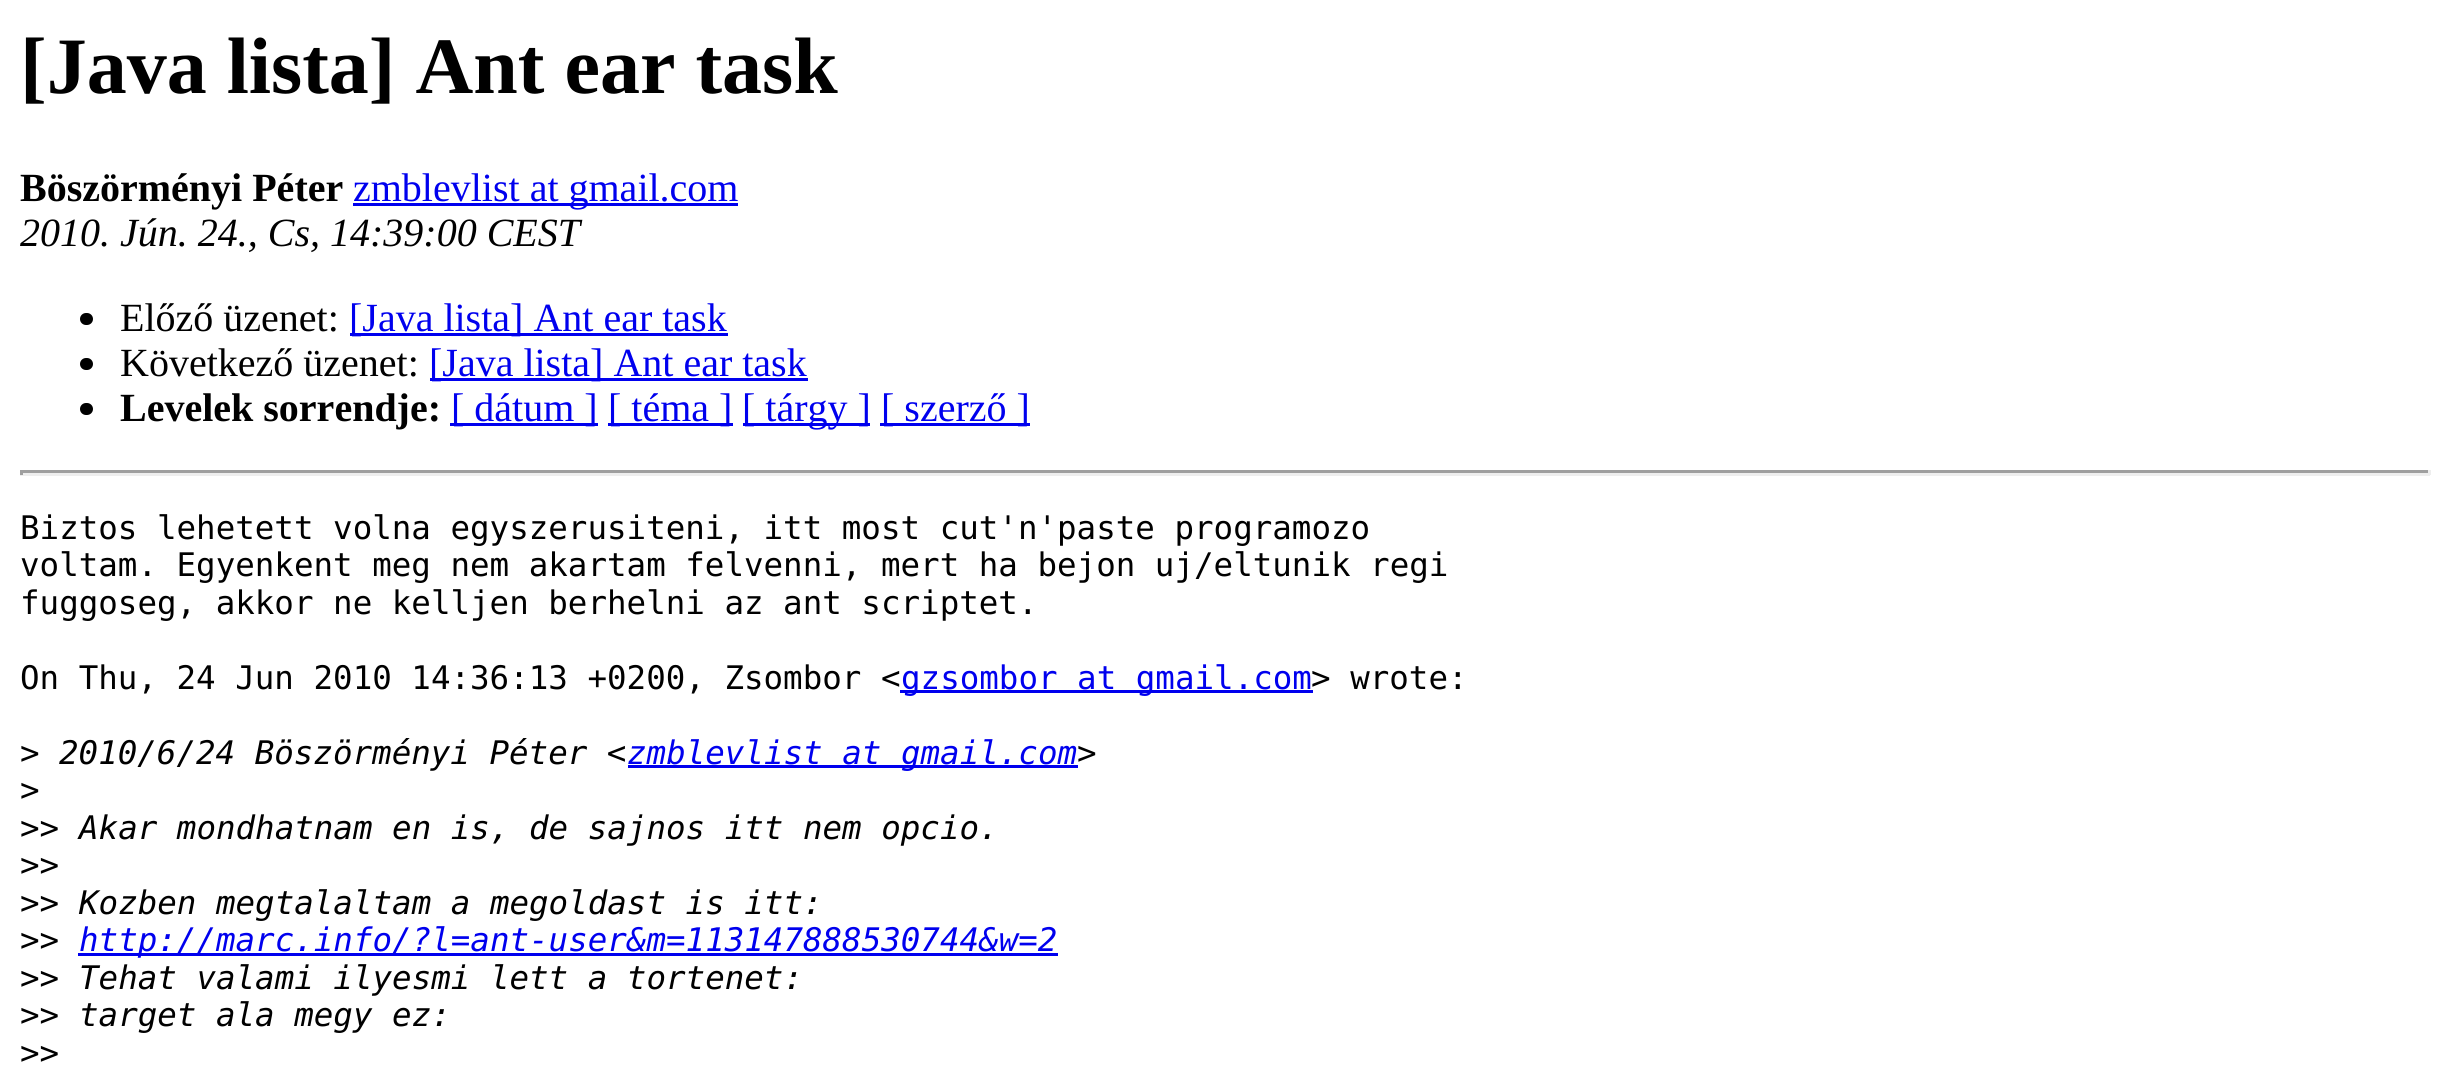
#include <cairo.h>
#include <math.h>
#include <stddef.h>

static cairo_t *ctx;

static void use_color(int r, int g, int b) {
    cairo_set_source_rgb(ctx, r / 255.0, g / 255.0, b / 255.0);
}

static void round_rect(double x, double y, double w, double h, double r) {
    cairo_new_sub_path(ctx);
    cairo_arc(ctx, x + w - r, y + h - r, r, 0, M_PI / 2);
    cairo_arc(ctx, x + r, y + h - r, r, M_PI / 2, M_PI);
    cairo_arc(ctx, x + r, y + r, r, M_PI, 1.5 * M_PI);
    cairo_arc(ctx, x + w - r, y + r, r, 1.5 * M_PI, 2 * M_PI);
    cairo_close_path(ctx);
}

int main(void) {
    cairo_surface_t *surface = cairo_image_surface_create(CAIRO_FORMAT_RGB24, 2448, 1082);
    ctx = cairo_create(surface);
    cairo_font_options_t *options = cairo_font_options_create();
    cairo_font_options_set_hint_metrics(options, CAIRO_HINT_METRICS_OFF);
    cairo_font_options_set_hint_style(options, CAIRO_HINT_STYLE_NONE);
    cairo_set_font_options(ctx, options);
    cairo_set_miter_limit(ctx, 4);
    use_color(255, 255, 255);
    cairo_paint(ctx);
    cairo_select_font_face(ctx, "Liberation Serif", CAIRO_FONT_SLANT_NORMAL, CAIRO_FONT_WEIGHT_BOLD);
    cairo_set_font_size(ctx, 80);
    use_color(0, 0, 0);
    cairo_move_to(ctx, 20, 93);
    cairo_show_text(ctx, "[Java lista] Ant ear task");
    cairo_set_font_size(ctx, 40);
    cairo_move_to(ctx, 20, 201);
    cairo_show_text(ctx, "Böszörményi Péter");
    use_color(0, 0, 238);
    cairo_rectangle(ctx, 353, 203, 385, 3);
    cairo_fill(ctx);
    cairo_select_font_face(ctx, "Liberation Serif", CAIRO_FONT_SLANT_NORMAL, CAIRO_FONT_WEIGHT_NORMAL);
    cairo_move_to(ctx, 353, 201);
    cairo_show_text(ctx, "zmblevlist at gmail.com");
    cairo_select_font_face(ctx, "Liberation Serif", CAIRO_FONT_SLANT_ITALIC, CAIRO_FONT_WEIGHT_NORMAL);
    use_color(0, 0, 0);
    cairo_move_to(ctx, 20, 246);
    cairo_show_text(ctx, "2010. Jún. 24., Cs, 14:39:00 CEST");
    round_rect(80, 313, 13, 12, 6);
    cairo_fill(ctx);
    cairo_select_font_face(ctx, "Liberation Serif", CAIRO_FONT_SLANT_NORMAL, CAIRO_FONT_WEIGHT_NORMAL);
    cairo_move_to(ctx, 120, 331);
    cairo_show_text(ctx, "Előző üzenet:");
    use_color(0, 0, 238);
    cairo_rectangle(ctx, 350, 333, 378, 3);
    cairo_fill(ctx);
    cairo_move_to(ctx, 349, 331);
    cairo_show_text(ctx, "[Java lista] Ant ear task");
    use_color(0, 0, 0);
    round_rect(80, 358, 13, 12, 6);
    cairo_fill(ctx);
    cairo_move_to(ctx, 120, 376);
    cairo_show_text(ctx, "Következő üzenet:");
    use_color(0, 0, 238);
    cairo_rectangle(ctx, 430, 378, 378, 3);
    cairo_fill(ctx);
    cairo_move_to(ctx, 429, 376);
    cairo_show_text(ctx, "[Java lista] Ant ear task");
    use_color(0, 0, 0);
    round_rect(80, 403, 13, 12, 6);
    cairo_fill(ctx);
    cairo_select_font_face(ctx, "Liberation Serif", CAIRO_FONT_SLANT_NORMAL, CAIRO_FONT_WEIGHT_BOLD);
    cairo_move_to(ctx, 120, 421);
    cairo_show_text(ctx, "Levelek sorrendje:");
    use_color(0, 0, 238);
    cairo_rectangle(ctx, 450, 423, 148, 3);
    cairo_fill(ctx);
    cairo_select_font_face(ctx, "Liberation Serif", CAIRO_FONT_SLANT_NORMAL, CAIRO_FONT_WEIGHT_NORMAL);
    cairo_move_to(ctx, 451, 421);
    cairo_show_text(ctx, "[ dátum ]");
    cairo_rectangle(ctx, 608, 423, 125, 3);
    cairo_fill(ctx);
    cairo_move_to(ctx, 608, 421);
    cairo_show_text(ctx, "[ téma ]");
    cairo_rectangle(ctx, 743, 423, 127, 3);
    cairo_fill(ctx);
    cairo_move_to(ctx, 742, 421);
    cairo_show_text(ctx, "[ tárgy ]");
    cairo_rectangle(ctx, 880, 423, 150, 3);
    cairo_fill(ctx);
    cairo_move_to(ctx, 881, 421);
    cairo_show_text(ctx, "[ szerző ]");
    use_color(159, 159, 159);
    cairo_rectangle(ctx, 20, 470, 2410, 3);
    cairo_fill(ctx);
    use_color(238, 238, 238);
    cairo_rectangle(ctx, 2428, 470, 3, 5);
    cairo_fill(ctx);
    cairo_rectangle(ctx, 20, 473, 2410, 3);
    cairo_fill(ctx);
    use_color(159, 159, 159);
    cairo_rectangle(ctx, 20, 470, 3, 5);
    cairo_fill(ctx);
    cairo_select_font_face(ctx, "DejaVu Sans Mono", CAIRO_FONT_SLANT_NORMAL, CAIRO_FONT_WEIGHT_NORMAL);
    cairo_set_font_size(ctx, 32.5);
    use_color(0, 0, 0);
    cairo_move_to(ctx, 20, 539);
    cairo_show_text(ctx, "Biztos lehetett volna egyszerusiteni, itt most cut'n'paste programozo");
    cairo_move_to(ctx, 20, 576);
    cairo_show_text(ctx, "voltam. Egyenkent meg nem akartam felvenni, mert ha bejon uj/eltunik regi");
    cairo_move_to(ctx, 20, 614);
    cairo_show_text(ctx, "fuggoseg, akkor ne kelljen berhelni az ant scriptet.");
    cairo_move_to(ctx, 20, 689);
    cairo_show_text(ctx, "On Thu, 24 Jun 2010 14:36:13 +0200, Zsombor <");
    use_color(0, 0, 238);
    cairo_rectangle(ctx, 900, 690, 413, 3);
    cairo_fill(ctx);
    cairo_move_to(ctx, 901, 689);
    cairo_show_text(ctx, "gzsombor at gmail.com");
    use_color(0, 0, 0);
    cairo_move_to(ctx, 1311, 689);
    cairo_show_text(ctx, "> wrote:");
    cairo_move_to(ctx, 20, 764);
    cairo_show_text(ctx, ">");
    cairo_select_font_face(ctx, "DejaVu Sans Mono", CAIRO_FONT_SLANT_ITALIC, CAIRO_FONT_WEIGHT_NORMAL);
    cairo_move_to(ctx, 59, 764);
    cairo_show_text(ctx, "2010/6/24 Böszörményi Péter <");
    use_color(0, 0, 238);
    cairo_rectangle(ctx, 628, 765, 450, 3);
    cairo_fill(ctx);
    cairo_move_to(ctx, 627, 764);
    cairo_show_text(ctx, "zmblevlist at gmail.com");
    use_color(0, 0, 0);
    cairo_move_to(ctx, 1077, 764);
    cairo_show_text(ctx, ">");
    cairo_select_font_face(ctx, "DejaVu Sans Mono", CAIRO_FONT_SLANT_NORMAL, CAIRO_FONT_WEIGHT_NORMAL);
    cairo_move_to(ctx, 20, 801);
    cairo_show_text(ctx, ">");
    cairo_move_to(ctx, 20, 839);
    cairo_show_text(ctx, ">>");
    cairo_select_font_face(ctx, "DejaVu Sans Mono", CAIRO_FONT_SLANT_ITALIC, CAIRO_FONT_WEIGHT_NORMAL);
    cairo_move_to(ctx, 79, 839);
    cairo_show_text(ctx, "Akar mondhatnam en is, de sajnos itt nem opcio.");
    cairo_select_font_face(ctx, "DejaVu Sans Mono", CAIRO_FONT_SLANT_NORMAL, CAIRO_FONT_WEIGHT_NORMAL);
    cairo_move_to(ctx, 20, 876);
    cairo_show_text(ctx, ">>");
    cairo_move_to(ctx, 20, 914);
    cairo_show_text(ctx, ">>");
    cairo_select_font_face(ctx, "DejaVu Sans Mono", CAIRO_FONT_SLANT_ITALIC, CAIRO_FONT_WEIGHT_NORMAL);
    cairo_move_to(ctx, 79, 914);
    cairo_show_text(ctx, "Kozben megtalaltam a megoldast is itt:");
    cairo_select_font_face(ctx, "DejaVu Sans Mono", CAIRO_FONT_SLANT_NORMAL, CAIRO_FONT_WEIGHT_NORMAL);
    cairo_move_to(ctx, 20, 951);
    cairo_show_text(ctx, ">>");
    use_color(0, 0, 238);
    cairo_rectangle(ctx, 78, 953, 980, 3);
    cairo_fill(ctx);
    cairo_select_font_face(ctx, "DejaVu Sans Mono", CAIRO_FONT_SLANT_ITALIC, CAIRO_FONT_WEIGHT_NORMAL);
    cairo_move_to(ctx, 79, 951);
    cairo_show_text(ctx, "http://marc.info/?l=ant-user&m=113147888530744&w=2");
    cairo_select_font_face(ctx, "DejaVu Sans Mono", CAIRO_FONT_SLANT_NORMAL, CAIRO_FONT_WEIGHT_NORMAL);
    use_color(0, 0, 0);
    cairo_move_to(ctx, 20, 989);
    cairo_show_text(ctx, ">>");
    cairo_select_font_face(ctx, "DejaVu Sans Mono", CAIRO_FONT_SLANT_ITALIC, CAIRO_FONT_WEIGHT_NORMAL);
    cairo_move_to(ctx, 79, 989);
    cairo_show_text(ctx, "Tehat valami ilyesmi lett a tortenet:");
    cairo_select_font_face(ctx, "DejaVu Sans Mono", CAIRO_FONT_SLANT_NORMAL, CAIRO_FONT_WEIGHT_NORMAL);
    cairo_move_to(ctx, 20, 1026);
    cairo_show_text(ctx, ">>");
    cairo_select_font_face(ctx, "DejaVu Sans Mono", CAIRO_FONT_SLANT_ITALIC, CAIRO_FONT_WEIGHT_NORMAL);
    cairo_move_to(ctx, 79, 1026);
    cairo_show_text(ctx, "target ala megy ez:");
    cairo_select_font_face(ctx, "DejaVu Sans Mono", CAIRO_FONT_SLANT_NORMAL, CAIRO_FONT_WEIGHT_NORMAL);
    cairo_move_to(ctx, 20, 1064);
    cairo_show_text(ctx, ">>");
    cairo_surface_write_to_png(surface, "result.png");
    cairo_font_options_destroy(options);
    cairo_destroy(ctx);
    cairo_surface_destroy(surface);
    return 0;
}
